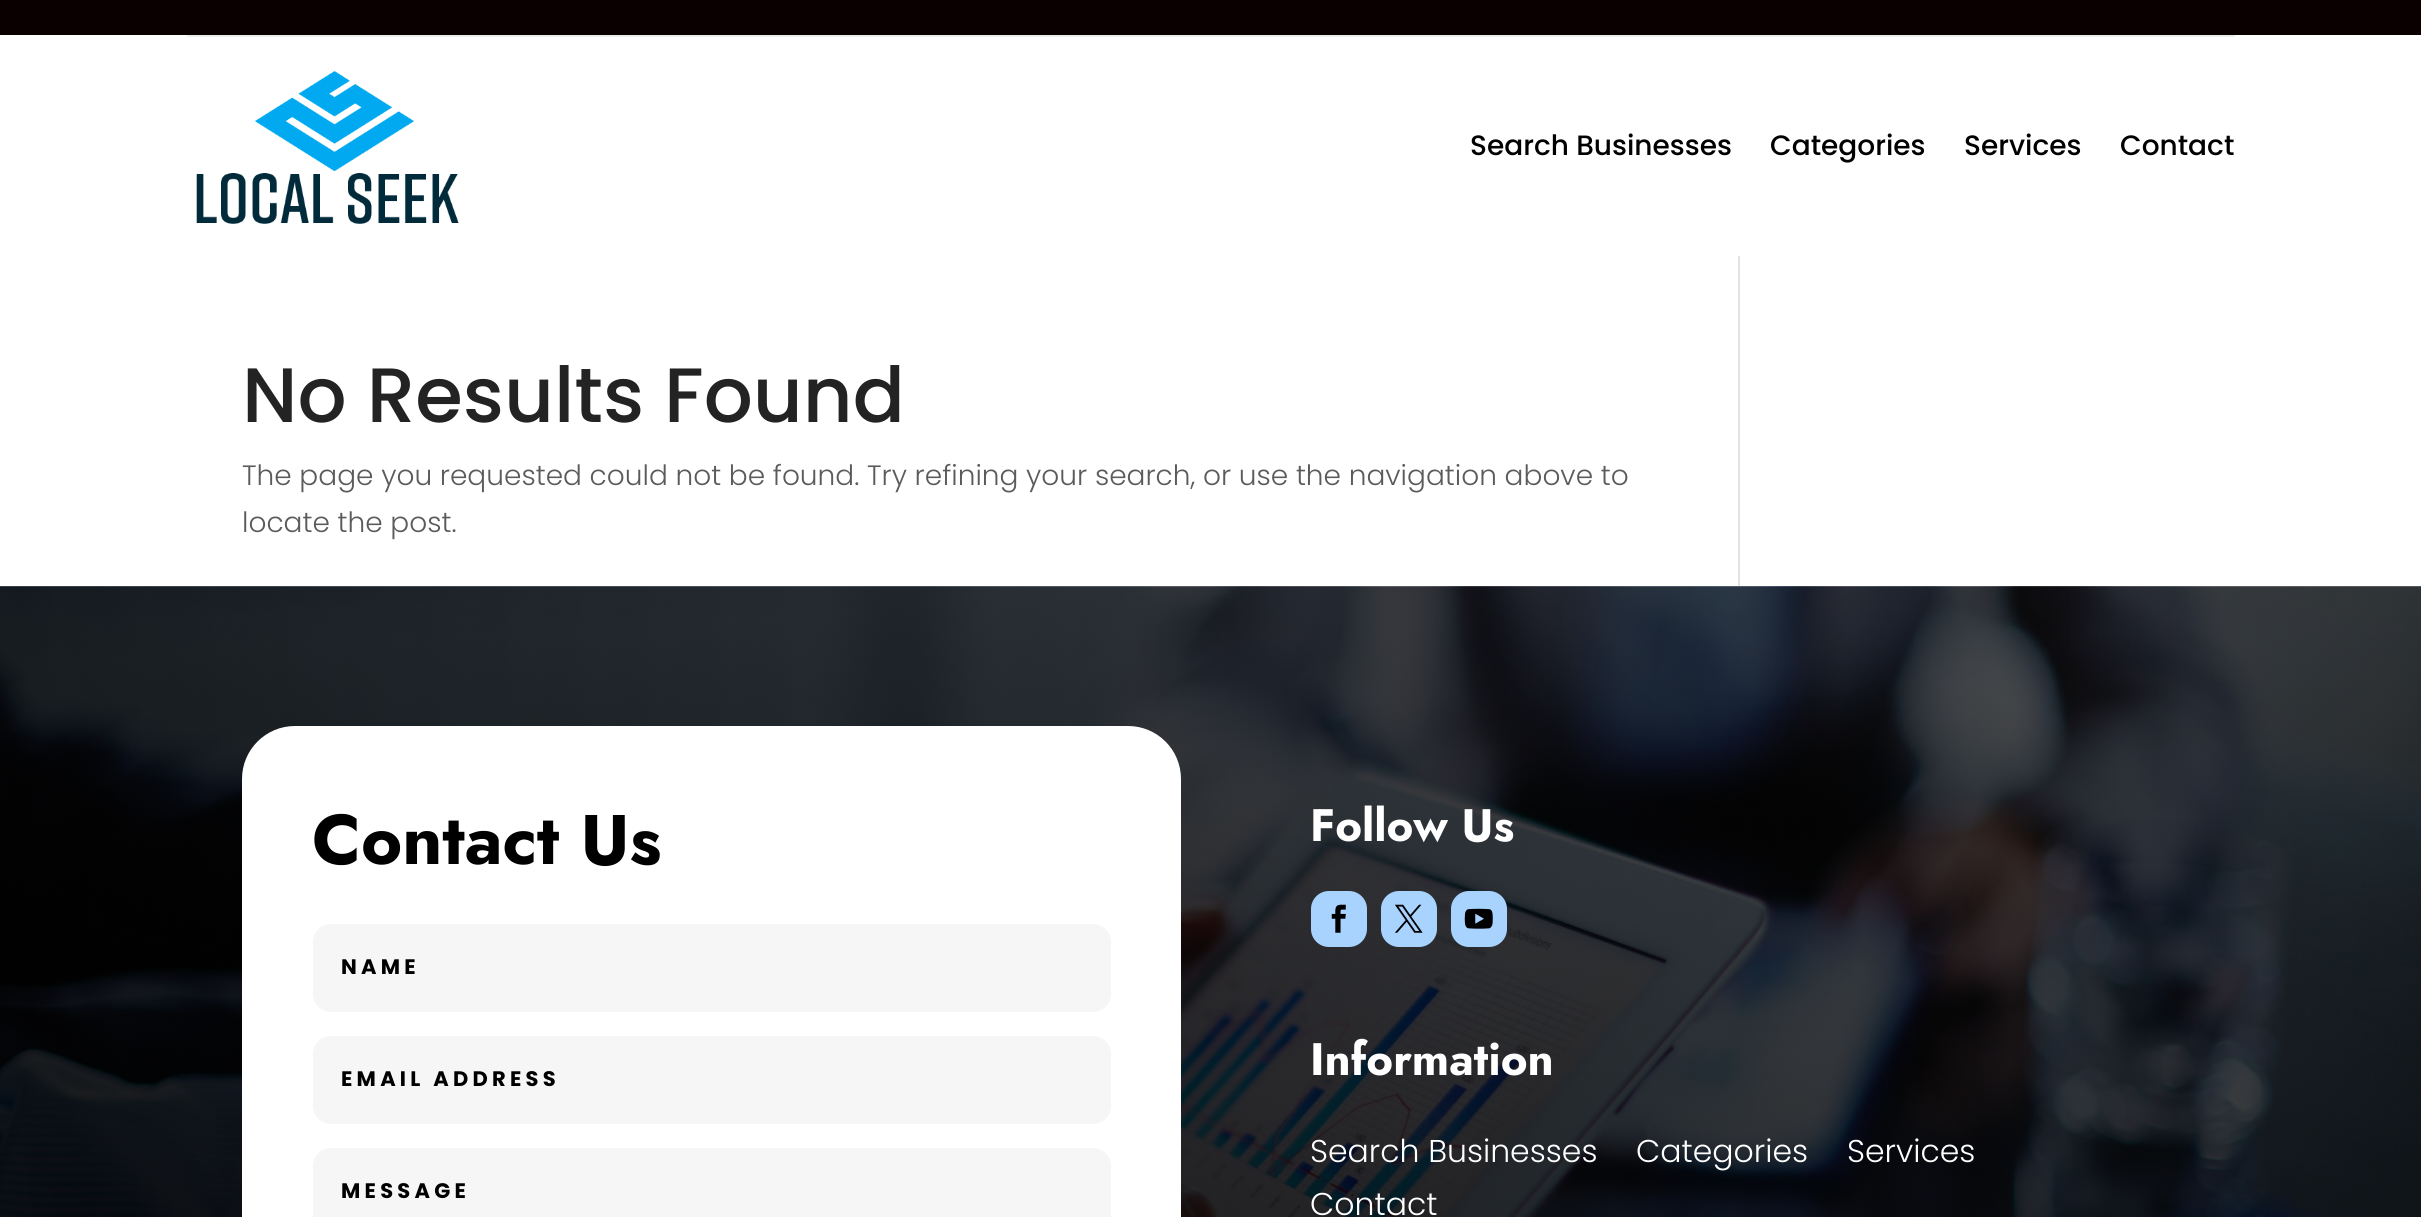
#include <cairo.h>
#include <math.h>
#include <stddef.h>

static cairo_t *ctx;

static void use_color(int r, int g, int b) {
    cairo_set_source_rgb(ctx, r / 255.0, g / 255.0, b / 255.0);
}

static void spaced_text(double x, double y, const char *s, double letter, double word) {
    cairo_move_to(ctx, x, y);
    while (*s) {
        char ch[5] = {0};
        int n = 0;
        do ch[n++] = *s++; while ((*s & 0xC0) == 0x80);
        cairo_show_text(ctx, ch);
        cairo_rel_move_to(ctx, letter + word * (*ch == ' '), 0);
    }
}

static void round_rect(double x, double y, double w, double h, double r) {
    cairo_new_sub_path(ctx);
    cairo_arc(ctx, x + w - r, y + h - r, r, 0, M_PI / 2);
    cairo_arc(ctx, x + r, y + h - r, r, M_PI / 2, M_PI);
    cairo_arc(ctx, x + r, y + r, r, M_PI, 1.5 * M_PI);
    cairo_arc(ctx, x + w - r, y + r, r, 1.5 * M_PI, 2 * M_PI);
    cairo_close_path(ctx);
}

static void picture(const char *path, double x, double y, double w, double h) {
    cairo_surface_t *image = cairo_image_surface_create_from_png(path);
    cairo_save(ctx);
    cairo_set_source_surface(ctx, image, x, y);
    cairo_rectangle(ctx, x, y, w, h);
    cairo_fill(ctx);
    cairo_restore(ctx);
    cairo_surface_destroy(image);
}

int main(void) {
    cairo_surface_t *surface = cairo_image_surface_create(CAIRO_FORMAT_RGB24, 2421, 1217);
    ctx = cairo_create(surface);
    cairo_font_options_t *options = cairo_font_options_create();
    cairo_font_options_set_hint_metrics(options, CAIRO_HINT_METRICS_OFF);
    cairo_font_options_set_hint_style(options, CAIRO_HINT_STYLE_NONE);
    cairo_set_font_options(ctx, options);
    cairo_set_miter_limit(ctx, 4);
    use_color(255, 255, 255);
    cairo_paint(ctx);
    use_color(10, 0, 0);
    cairo_rectangle(ctx, 0, 0, 2421, 35);
    cairo_fill(ctx);
    use_color(237, 237, 237);
    cairo_rectangle(ctx, 187, 35, 2048, 2);
    cairo_fill(ctx);
    picture("img1.png", 196, 70, 263, 154);
    cairo_select_font_face(ctx, "Poppins Medium", CAIRO_FONT_SLANT_NORMAL, CAIRO_FONT_WEIGHT_NORMAL);
    cairo_set_font_size(ctx, 28);
    use_color(0, 0, 0);
    cairo_move_to(ctx, 1470, 155);
    cairo_show_text(ctx, "Search Businesses");
    cairo_move_to(ctx, 1770, 155);
    cairo_show_text(ctx, "Categories");
    cairo_move_to(ctx, 1964, 155);
    cairo_show_text(ctx, "Services");
    cairo_move_to(ctx, 2120, 155);
    cairo_show_text(ctx, "Contact");
    cairo_set_font_size(ctx, 77);
    use_color(35, 35, 35);
    cairo_move_to(ctx, 242, 422);
    cairo_show_text(ctx, "No Results Found");
    cairo_select_font_face(ctx, "Poppins Light", CAIRO_FONT_SLANT_NORMAL, CAIRO_FONT_WEIGHT_NORMAL);
    cairo_set_font_size(ctx, 28);
    use_color(91, 91, 91);
    cairo_move_to(ctx, 242, 485);
    cairo_show_text(ctx, "The page you requested could not be found. Try refining your search, or use the navigation above to");
    cairo_move_to(ctx, 242, 532);
    cairo_show_text(ctx, "locate the post.");
    use_color(226, 226, 226);
    cairo_rectangle(ctx, 1738, 256, 2, 330);
    cairo_fill(ctx);
    picture("img2.png", 0, 586, 2421, 631);
    use_color(255, 255, 255);
    round_rect(242, 726, 939, 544, 53);
    cairo_fill(ctx);
    cairo_select_font_face(ctx, "Jost", CAIRO_FONT_SLANT_NORMAL, CAIRO_FONT_WEIGHT_BOLD);
    cairo_set_font_size(ctx, 70);
    use_color(0, 0, 0);
    cairo_move_to(ctx, 312, 864);
    cairo_show_text(ctx, "Contact Us");
    use_color(246, 246, 246);
    round_rect(313, 924, 798, 88, 18);
    cairo_fill(ctx);
    cairo_select_font_face(ctx, "Poppins", CAIRO_FONT_SLANT_NORMAL, CAIRO_FONT_WEIGHT_BOLD);
    cairo_set_font_size(ctx, 21);
    use_color(0, 0, 0);
    spaced_text(341, 974, "NAME", 4.25, 0);
    use_color(246, 246, 246);
    round_rect(313, 1036, 798, 88, 18);
    cairo_fill(ctx);
    use_color(0, 0, 0);
    spaced_text(341, 1086, "EMAIL ADDRESS", 4.25, 0);
    use_color(246, 246, 246);
    round_rect(313, 1148, 798, 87, 18);
    cairo_fill(ctx);
    use_color(0, 0, 0);
    spaced_text(341, 1198, "MESSAGE", 4.25, 0);
    cairo_select_font_face(ctx, "Jost", CAIRO_FONT_SLANT_NORMAL, CAIRO_FONT_WEIGHT_BOLD);
    cairo_set_font_size(ctx, 45.5);
    use_color(255, 255, 255);
    cairo_move_to(ctx, 1310, 841);
    cairo_show_text(ctx, "Follow Us");
    use_color(168, 211, 255);
    round_rect(1311, 891, 56, 56, 18);
    cairo_fill(ctx);
    picture("img3.png", 1331, 904, 15, 29);
    round_rect(1381, 891, 56, 56, 18);
    cairo_fill(ctx);
    picture("img4.png", 1395, 904, 28, 29);
    round_rect(1451, 891, 56, 56, 18);
    cairo_fill(ctx);
    picture("img5.png", 1464, 908, 29, 21);
    use_color(255, 255, 255);
    cairo_move_to(ctx, 1310, 1075);
    cairo_show_text(ctx, "Information");
    cairo_select_font_face(ctx, "Poppins Light", CAIRO_FONT_SLANT_NORMAL, CAIRO_FONT_WEIGHT_NORMAL);
    cairo_set_font_size(ctx, 31.5);
    cairo_move_to(ctx, 1310, 1162);
    cairo_show_text(ctx, "Search Businesses");
    cairo_move_to(ctx, 1636, 1162);
    cairo_show_text(ctx, "Categories");
    cairo_move_to(ctx, 1847, 1162);
    cairo_show_text(ctx, "Services");
    cairo_move_to(ctx, 1310, 1215);
    cairo_show_text(ctx, "Contact");
    cairo_surface_write_to_png(surface, "result.png");
    cairo_font_options_destroy(options);
    cairo_destroy(ctx);
    cairo_surface_destroy(surface);
    return 0;
}
